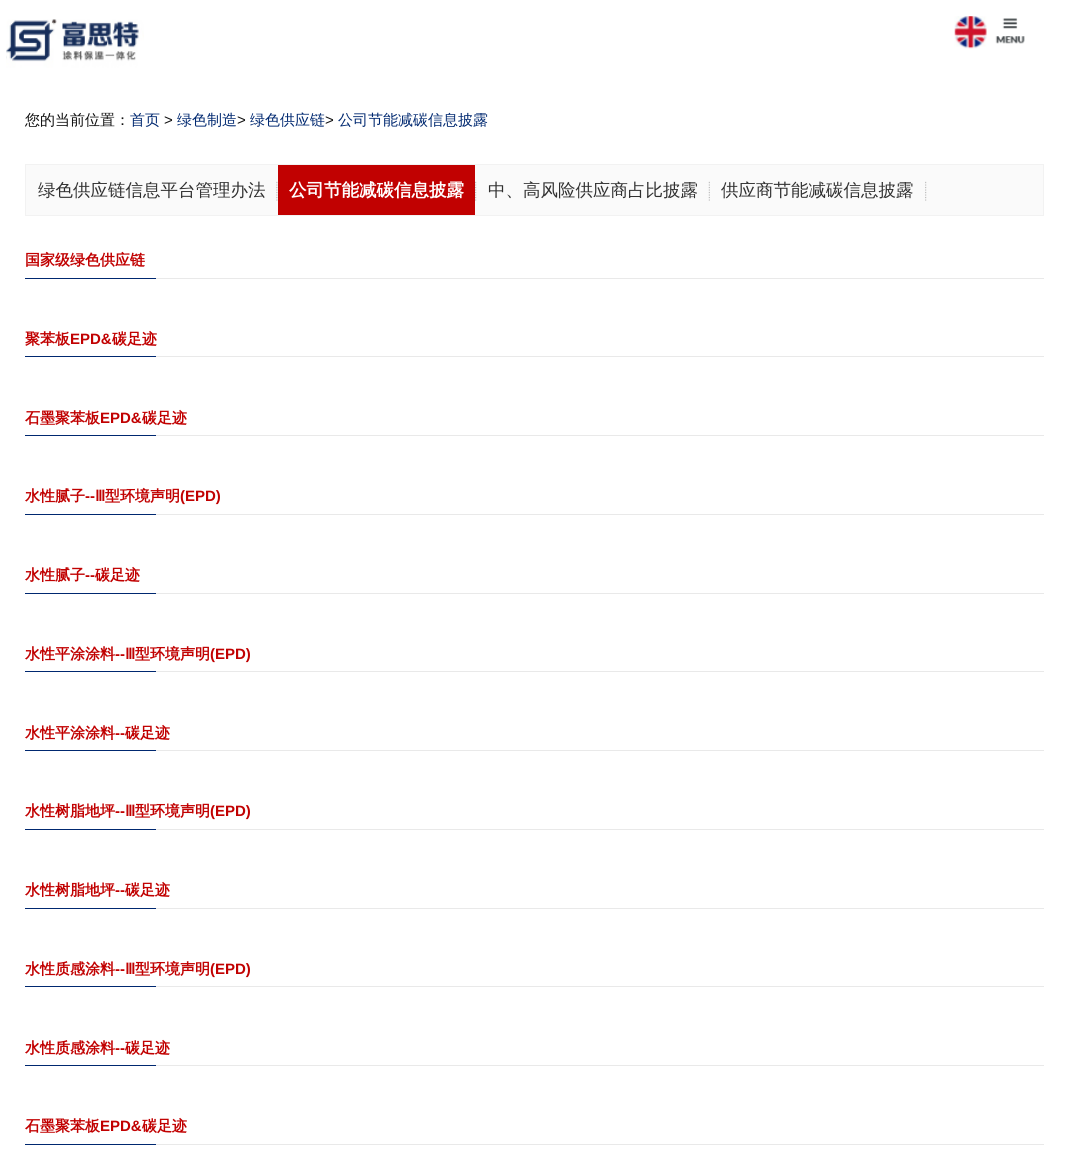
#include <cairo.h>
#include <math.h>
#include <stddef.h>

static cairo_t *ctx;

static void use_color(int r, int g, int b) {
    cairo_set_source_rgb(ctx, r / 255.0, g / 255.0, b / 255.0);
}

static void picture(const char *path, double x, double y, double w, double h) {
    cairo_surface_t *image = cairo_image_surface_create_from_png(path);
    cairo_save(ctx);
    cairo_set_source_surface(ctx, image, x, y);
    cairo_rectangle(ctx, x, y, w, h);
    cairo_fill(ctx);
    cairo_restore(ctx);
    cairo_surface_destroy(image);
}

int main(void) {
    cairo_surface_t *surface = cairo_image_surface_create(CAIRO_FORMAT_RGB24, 1068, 1158);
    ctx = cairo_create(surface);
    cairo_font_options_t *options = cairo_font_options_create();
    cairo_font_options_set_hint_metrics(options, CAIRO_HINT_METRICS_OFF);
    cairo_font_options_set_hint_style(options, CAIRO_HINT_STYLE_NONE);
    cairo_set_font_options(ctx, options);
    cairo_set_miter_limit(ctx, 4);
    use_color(255, 255, 255);
    cairo_paint(ctx);
    picture("img1.png", 6, 25, 1, 43);
    picture("img2.png", 6, 19, 138, 49);
    picture("img3.png", 954, 16, 33, 33);
    picture("img4.png", 995, 18, 30, 26);
    cairo_select_font_face(ctx, "WenQuanYi Zen Hei Medium", CAIRO_FONT_SLANT_NORMAL, CAIRO_FONT_WEIGHT_NORMAL);
    cairo_set_font_size(ctx, 15);
    use_color(16, 16, 16);
    cairo_move_to(ctx, 25, 125);
    cairo_show_text(ctx, "您的当前位置：");
    use_color(0, 40, 112);
    cairo_move_to(ctx, 130, 125);
    cairo_show_text(ctx, "首页");
    cairo_select_font_face(ctx, "Liberation Sans", CAIRO_FONT_SLANT_NORMAL, CAIRO_FONT_WEIGHT_NORMAL);
    use_color(16, 16, 16);
    cairo_move_to(ctx, 164, 125);
    cairo_show_text(ctx, ">");
    cairo_select_font_face(ctx, "WenQuanYi Zen Hei Medium", CAIRO_FONT_SLANT_NORMAL, CAIRO_FONT_WEIGHT_NORMAL);
    use_color(0, 40, 112);
    cairo_move_to(ctx, 177, 125);
    cairo_show_text(ctx, "绿色制造");
    cairo_select_font_face(ctx, "Liberation Sans", CAIRO_FONT_SLANT_NORMAL, CAIRO_FONT_WEIGHT_NORMAL);
    use_color(16, 16, 16);
    cairo_move_to(ctx, 237, 125);
    cairo_show_text(ctx, ">");
    cairo_select_font_face(ctx, "WenQuanYi Zen Hei Medium", CAIRO_FONT_SLANT_NORMAL, CAIRO_FONT_WEIGHT_NORMAL);
    use_color(0, 40, 112);
    cairo_move_to(ctx, 250, 125);
    cairo_show_text(ctx, "绿色供应链");
    cairo_select_font_face(ctx, "Liberation Sans", CAIRO_FONT_SLANT_NORMAL, CAIRO_FONT_WEIGHT_NORMAL);
    use_color(16, 16, 16);
    cairo_move_to(ctx, 325, 125);
    cairo_show_text(ctx, ">");
    cairo_select_font_face(ctx, "WenQuanYi Zen Hei Medium", CAIRO_FONT_SLANT_NORMAL, CAIRO_FONT_WEIGHT_NORMAL);
    use_color(0, 40, 112);
    cairo_move_to(ctx, 338, 125);
    cairo_show_text(ctx, "公司节能减碳信息披露");
    use_color(250, 250, 250);
    cairo_rectangle(ctx, 25.5, 164.5, 1018, 51);
    cairo_fill_preserve(ctx);
    use_color(242, 242, 242);
    cairo_set_line_width(ctx, 1);
    cairo_stroke(ctx);
    cairo_set_font_size(ctx, 17.5);
    use_color(48, 48, 48);
    cairo_move_to(ctx, 38, 196);
    cairo_show_text(ctx, "绿色供应链信息平台管理办法");
    picture("img5.png", 276, 181, 2, 20);
    use_color(193, 1, 1);
    cairo_rectangle(ctx, 278, 165, 197, 50);
    cairo_fill(ctx);
    cairo_select_font_face(ctx, "WenQuanYi Zen Hei", CAIRO_FONT_SLANT_NORMAL, CAIRO_FONT_WEIGHT_BOLD);
    use_color(255, 255, 255);
    cairo_move_to(ctx, 289, 196);
    cairo_show_text(ctx, "公司节能减碳信息披露");
    picture("img6.png", 475, 181, 2, 20);
    cairo_select_font_face(ctx, "WenQuanYi Zen Hei Medium", CAIRO_FONT_SLANT_NORMAL, CAIRO_FONT_WEIGHT_NORMAL);
    use_color(48, 48, 48);
    cairo_move_to(ctx, 488, 196);
    cairo_show_text(ctx, "中、高风险供应商占比披露");
    picture("img7.png", 708, 181, 2, 20);
    cairo_move_to(ctx, 721, 196);
    cairo_show_text(ctx, "供应商节能减碳信息披露");
    picture("img6.png", 925, 181, 2, 20);
    cairo_select_font_face(ctx, "WenQuanYi Zen Hei", CAIRO_FONT_SLANT_NORMAL, CAIRO_FONT_WEIGHT_BOLD);
    cairo_set_font_size(ctx, 15);
    use_color(193, 1, 1);
    cairo_move_to(ctx, 25, 265);
    cairo_show_text(ctx, "国家级绿色供应链");
    use_color(233, 233, 233);
    cairo_rectangle(ctx, 156, 278, 888, 1);
    cairo_fill(ctx);
    use_color(0, 40, 112);
    cairo_rectangle(ctx, 25, 278, 131, 1);
    cairo_fill(ctx);
    use_color(193, 1, 1);
    cairo_move_to(ctx, 25, 344);
    cairo_show_text(ctx, "聚苯板");
    cairo_select_font_face(ctx, "Liberation Sans", CAIRO_FONT_SLANT_NORMAL, CAIRO_FONT_WEIGHT_BOLD);
    cairo_move_to(ctx, 70, 344);
    cairo_show_text(ctx, "EPD&");
    cairo_select_font_face(ctx, "WenQuanYi Zen Hei", CAIRO_FONT_SLANT_NORMAL, CAIRO_FONT_WEIGHT_BOLD);
    cairo_move_to(ctx, 112, 344);
    cairo_show_text(ctx, "碳足迹");
    use_color(233, 233, 233);
    cairo_rectangle(ctx, 156, 356, 888, 1);
    cairo_fill(ctx);
    use_color(0, 40, 112);
    cairo_rectangle(ctx, 25, 356, 131, 1);
    cairo_fill(ctx);
    use_color(193, 1, 1);
    cairo_move_to(ctx, 25, 423);
    cairo_show_text(ctx, "石墨聚苯板");
    cairo_select_font_face(ctx, "Liberation Sans", CAIRO_FONT_SLANT_NORMAL, CAIRO_FONT_WEIGHT_BOLD);
    cairo_move_to(ctx, 100, 423);
    cairo_show_text(ctx, "EPD&");
    cairo_select_font_face(ctx, "WenQuanYi Zen Hei", CAIRO_FONT_SLANT_NORMAL, CAIRO_FONT_WEIGHT_BOLD);
    cairo_move_to(ctx, 142, 423);
    cairo_show_text(ctx, "碳足迹");
    use_color(233, 233, 233);
    cairo_rectangle(ctx, 156, 435, 888, 1);
    cairo_fill(ctx);
    use_color(0, 40, 112);
    cairo_rectangle(ctx, 25, 435, 131, 1);
    cairo_fill(ctx);
    use_color(193, 1, 1);
    cairo_move_to(ctx, 25, 501);
    cairo_show_text(ctx, "水性腻子");
    cairo_select_font_face(ctx, "Liberation Sans", CAIRO_FONT_SLANT_NORMAL, CAIRO_FONT_WEIGHT_BOLD);
    cairo_move_to(ctx, 85, 501);
    cairo_show_text(ctx, "--");
    cairo_select_font_face(ctx, "DejaVu Sans", CAIRO_FONT_SLANT_NORMAL, CAIRO_FONT_WEIGHT_BOLD);
    cairo_move_to(ctx, 95, 501);
    cairo_show_text(ctx, "Ⅲ");
    cairo_select_font_face(ctx, "WenQuanYi Zen Hei", CAIRO_FONT_SLANT_NORMAL, CAIRO_FONT_WEIGHT_BOLD);
    cairo_move_to(ctx, 105, 501);
    cairo_show_text(ctx, "型环境声明");
    cairo_select_font_face(ctx, "Liberation Sans", CAIRO_FONT_SLANT_NORMAL, CAIRO_FONT_WEIGHT_BOLD);
    cairo_move_to(ctx, 180, 501);
    cairo_show_text(ctx, "(EPD)");
    use_color(233, 233, 233);
    cairo_rectangle(ctx, 156, 514, 888, 1);
    cairo_fill(ctx);
    use_color(0, 40, 112);
    cairo_rectangle(ctx, 25, 514, 131, 1);
    cairo_fill(ctx);
    cairo_select_font_face(ctx, "WenQuanYi Zen Hei", CAIRO_FONT_SLANT_NORMAL, CAIRO_FONT_WEIGHT_BOLD);
    use_color(193, 1, 1);
    cairo_move_to(ctx, 25, 580);
    cairo_show_text(ctx, "水性腻子");
    cairo_select_font_face(ctx, "Liberation Sans", CAIRO_FONT_SLANT_NORMAL, CAIRO_FONT_WEIGHT_BOLD);
    cairo_move_to(ctx, 85, 580);
    cairo_show_text(ctx, "--");
    cairo_select_font_face(ctx, "WenQuanYi Zen Hei", CAIRO_FONT_SLANT_NORMAL, CAIRO_FONT_WEIGHT_BOLD);
    cairo_move_to(ctx, 95, 580);
    cairo_show_text(ctx, "碳足迹");
    use_color(233, 233, 233);
    cairo_rectangle(ctx, 156, 593, 888, 1);
    cairo_fill(ctx);
    use_color(0, 40, 112);
    cairo_rectangle(ctx, 25, 593, 131, 1);
    cairo_fill(ctx);
    use_color(193, 1, 1);
    cairo_move_to(ctx, 25, 659);
    cairo_show_text(ctx, "水性平涂涂料");
    cairo_select_font_face(ctx, "Liberation Sans", CAIRO_FONT_SLANT_NORMAL, CAIRO_FONT_WEIGHT_BOLD);
    cairo_move_to(ctx, 115, 659);
    cairo_show_text(ctx, "--");
    cairo_select_font_face(ctx, "DejaVu Sans", CAIRO_FONT_SLANT_NORMAL, CAIRO_FONT_WEIGHT_BOLD);
    cairo_move_to(ctx, 125, 659);
    cairo_show_text(ctx, "Ⅲ");
    cairo_select_font_face(ctx, "WenQuanYi Zen Hei", CAIRO_FONT_SLANT_NORMAL, CAIRO_FONT_WEIGHT_BOLD);
    cairo_move_to(ctx, 135, 659);
    cairo_show_text(ctx, "型环境声明");
    cairo_select_font_face(ctx, "Liberation Sans", CAIRO_FONT_SLANT_NORMAL, CAIRO_FONT_WEIGHT_BOLD);
    cairo_move_to(ctx, 210, 659);
    cairo_show_text(ctx, "(EPD)");
    use_color(233, 233, 233);
    cairo_rectangle(ctx, 156, 671, 888, 1);
    cairo_fill(ctx);
    use_color(0, 40, 112);
    cairo_rectangle(ctx, 25, 671, 131, 1);
    cairo_fill(ctx);
    cairo_select_font_face(ctx, "WenQuanYi Zen Hei", CAIRO_FONT_SLANT_NORMAL, CAIRO_FONT_WEIGHT_BOLD);
    use_color(193, 1, 1);
    cairo_move_to(ctx, 25, 738);
    cairo_show_text(ctx, "水性平涂涂料");
    cairo_select_font_face(ctx, "Liberation Sans", CAIRO_FONT_SLANT_NORMAL, CAIRO_FONT_WEIGHT_BOLD);
    cairo_move_to(ctx, 115, 738);
    cairo_show_text(ctx, "--");
    cairo_select_font_face(ctx, "WenQuanYi Zen Hei", CAIRO_FONT_SLANT_NORMAL, CAIRO_FONT_WEIGHT_BOLD);
    cairo_move_to(ctx, 125, 738);
    cairo_show_text(ctx, "碳足迹");
    use_color(233, 233, 233);
    cairo_rectangle(ctx, 156, 750, 888, 1);
    cairo_fill(ctx);
    use_color(0, 40, 112);
    cairo_rectangle(ctx, 25, 750, 131, 1);
    cairo_fill(ctx);
    use_color(193, 1, 1);
    cairo_move_to(ctx, 25, 816);
    cairo_show_text(ctx, "水性树脂地坪");
    cairo_select_font_face(ctx, "Liberation Sans", CAIRO_FONT_SLANT_NORMAL, CAIRO_FONT_WEIGHT_BOLD);
    cairo_move_to(ctx, 115, 816);
    cairo_show_text(ctx, "--");
    cairo_select_font_face(ctx, "DejaVu Sans", CAIRO_FONT_SLANT_NORMAL, CAIRO_FONT_WEIGHT_BOLD);
    cairo_move_to(ctx, 125, 816);
    cairo_show_text(ctx, "Ⅲ");
    cairo_select_font_face(ctx, "WenQuanYi Zen Hei", CAIRO_FONT_SLANT_NORMAL, CAIRO_FONT_WEIGHT_BOLD);
    cairo_move_to(ctx, 135, 816);
    cairo_show_text(ctx, "型环境声明");
    cairo_select_font_face(ctx, "Liberation Sans", CAIRO_FONT_SLANT_NORMAL, CAIRO_FONT_WEIGHT_BOLD);
    cairo_move_to(ctx, 210, 816);
    cairo_show_text(ctx, "(EPD)");
    use_color(233, 233, 233);
    cairo_rectangle(ctx, 156, 829, 888, 1);
    cairo_fill(ctx);
    use_color(0, 40, 112);
    cairo_rectangle(ctx, 25, 829, 131, 1);
    cairo_fill(ctx);
    cairo_select_font_face(ctx, "WenQuanYi Zen Hei", CAIRO_FONT_SLANT_NORMAL, CAIRO_FONT_WEIGHT_BOLD);
    use_color(193, 1, 1);
    cairo_move_to(ctx, 25, 895);
    cairo_show_text(ctx, "水性树脂地坪");
    cairo_select_font_face(ctx, "Liberation Sans", CAIRO_FONT_SLANT_NORMAL, CAIRO_FONT_WEIGHT_BOLD);
    cairo_move_to(ctx, 115, 895);
    cairo_show_text(ctx, "--");
    cairo_select_font_face(ctx, "WenQuanYi Zen Hei", CAIRO_FONT_SLANT_NORMAL, CAIRO_FONT_WEIGHT_BOLD);
    cairo_move_to(ctx, 125, 895);
    cairo_show_text(ctx, "碳足迹");
    use_color(233, 233, 233);
    cairo_rectangle(ctx, 156, 908, 888, 1);
    cairo_fill(ctx);
    use_color(0, 40, 112);
    cairo_rectangle(ctx, 25, 908, 131, 1);
    cairo_fill(ctx);
    use_color(193, 1, 1);
    cairo_move_to(ctx, 25, 974);
    cairo_show_text(ctx, "水性质感涂料");
    cairo_select_font_face(ctx, "Liberation Sans", CAIRO_FONT_SLANT_NORMAL, CAIRO_FONT_WEIGHT_BOLD);
    cairo_move_to(ctx, 115, 974);
    cairo_show_text(ctx, "--");
    cairo_select_font_face(ctx, "DejaVu Sans", CAIRO_FONT_SLANT_NORMAL, CAIRO_FONT_WEIGHT_BOLD);
    cairo_move_to(ctx, 125, 974);
    cairo_show_text(ctx, "Ⅲ");
    cairo_select_font_face(ctx, "WenQuanYi Zen Hei", CAIRO_FONT_SLANT_NORMAL, CAIRO_FONT_WEIGHT_BOLD);
    cairo_move_to(ctx, 135, 974);
    cairo_show_text(ctx, "型环境声明");
    cairo_select_font_face(ctx, "Liberation Sans", CAIRO_FONT_SLANT_NORMAL, CAIRO_FONT_WEIGHT_BOLD);
    cairo_move_to(ctx, 210, 974);
    cairo_show_text(ctx, "(EPD)");
    use_color(233, 233, 233);
    cairo_rectangle(ctx, 156, 986, 888, 1);
    cairo_fill(ctx);
    use_color(0, 40, 112);
    cairo_rectangle(ctx, 25, 986, 131, 1);
    cairo_fill(ctx);
    cairo_select_font_face(ctx, "WenQuanYi Zen Hei", CAIRO_FONT_SLANT_NORMAL, CAIRO_FONT_WEIGHT_BOLD);
    use_color(193, 1, 1);
    cairo_move_to(ctx, 25, 1053);
    cairo_show_text(ctx, "水性质感涂料");
    cairo_select_font_face(ctx, "Liberation Sans", CAIRO_FONT_SLANT_NORMAL, CAIRO_FONT_WEIGHT_BOLD);
    cairo_move_to(ctx, 115, 1053);
    cairo_show_text(ctx, "--");
    cairo_select_font_face(ctx, "WenQuanYi Zen Hei", CAIRO_FONT_SLANT_NORMAL, CAIRO_FONT_WEIGHT_BOLD);
    cairo_move_to(ctx, 125, 1053);
    cairo_show_text(ctx, "碳足迹");
    use_color(233, 233, 233);
    cairo_rectangle(ctx, 156, 1065, 888, 1);
    cairo_fill(ctx);
    use_color(0, 40, 112);
    cairo_rectangle(ctx, 25, 1065, 131, 1);
    cairo_fill(ctx);
    use_color(193, 1, 1);
    cairo_move_to(ctx, 25, 1131);
    cairo_show_text(ctx, "石墨聚苯板");
    cairo_select_font_face(ctx, "Liberation Sans", CAIRO_FONT_SLANT_NORMAL, CAIRO_FONT_WEIGHT_BOLD);
    cairo_move_to(ctx, 100, 1131);
    cairo_show_text(ctx, "EPD&");
    cairo_select_font_face(ctx, "WenQuanYi Zen Hei", CAIRO_FONT_SLANT_NORMAL, CAIRO_FONT_WEIGHT_BOLD);
    cairo_move_to(ctx, 142, 1131);
    cairo_show_text(ctx, "碳足迹");
    use_color(233, 233, 233);
    cairo_rectangle(ctx, 156, 1144, 888, 1);
    cairo_fill(ctx);
    use_color(0, 40, 112);
    cairo_rectangle(ctx, 25, 1144, 131, 1);
    cairo_fill(ctx);
    cairo_surface_write_to_png(surface, "result.png");
    cairo_font_options_destroy(options);
    cairo_destroy(ctx);
    cairo_surface_destroy(surface);
    return 0;
}
